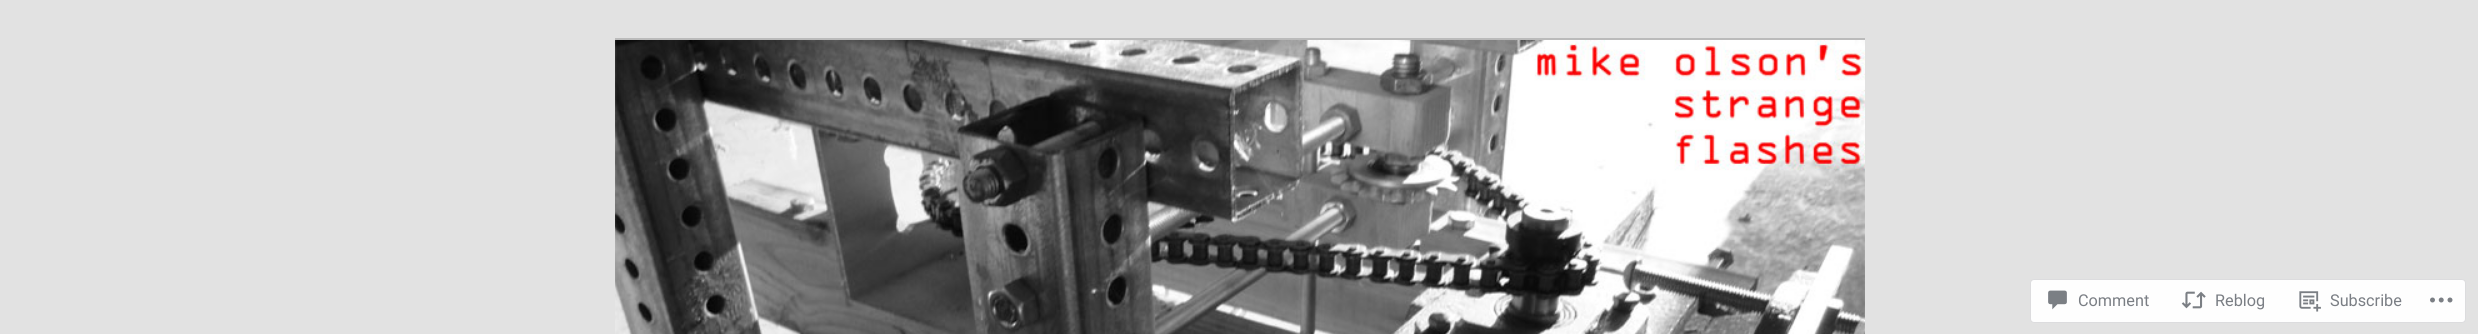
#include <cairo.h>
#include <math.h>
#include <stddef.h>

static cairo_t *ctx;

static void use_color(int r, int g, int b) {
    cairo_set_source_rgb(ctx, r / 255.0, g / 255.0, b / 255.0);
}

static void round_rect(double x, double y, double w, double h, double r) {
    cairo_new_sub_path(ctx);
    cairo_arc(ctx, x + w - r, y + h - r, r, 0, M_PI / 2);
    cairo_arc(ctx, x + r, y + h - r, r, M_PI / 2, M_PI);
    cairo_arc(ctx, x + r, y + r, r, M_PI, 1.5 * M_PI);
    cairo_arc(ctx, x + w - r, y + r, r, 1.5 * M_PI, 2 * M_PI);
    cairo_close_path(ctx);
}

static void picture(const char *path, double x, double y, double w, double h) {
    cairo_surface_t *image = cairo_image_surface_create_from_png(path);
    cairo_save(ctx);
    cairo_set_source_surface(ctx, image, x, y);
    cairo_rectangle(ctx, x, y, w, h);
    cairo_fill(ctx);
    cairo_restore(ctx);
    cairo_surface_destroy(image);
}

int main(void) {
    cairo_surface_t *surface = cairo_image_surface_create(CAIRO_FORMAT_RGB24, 2478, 334);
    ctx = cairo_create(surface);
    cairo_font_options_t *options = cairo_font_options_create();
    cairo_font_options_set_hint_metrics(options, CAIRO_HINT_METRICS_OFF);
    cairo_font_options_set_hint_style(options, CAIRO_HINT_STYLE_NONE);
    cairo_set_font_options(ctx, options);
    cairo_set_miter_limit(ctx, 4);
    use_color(226, 226, 226);
    cairo_paint(ctx);
    use_color(187, 187, 187);
    cairo_rectangle(ctx, 615, 38, 1250, 2);
    cairo_fill(ctx);
    picture("img1.png", 615, 40, 1250, 294);
    use_color(254, 254, 254);
    round_rect(2030.5, 279.5, 435, 43, 3.5);
    cairo_fill_preserve(ctx);
    use_color(220, 220, 222);
    cairo_set_line_width(ctx, 1);
    cairo_stroke(ctx);
    picture("img2.png", 2048, 290, 19, 20);
    cairo_select_font_face(ctx, "Roboto", CAIRO_FONT_SLANT_NORMAL, CAIRO_FONT_WEIGHT_NORMAL);
    cairo_set_font_size(ctx, 16.25);
    use_color(122, 126, 132);
    cairo_move_to(ctx, 2078, 306);
    cairo_show_text(ctx, "Comment");
    picture("img3.png", 2181, 291, 25, 18);
    cairo_move_to(ctx, 2215, 306);
    cairo_show_text(ctx, "Reblog");
    picture("img4.png", 2299, 291, 22, 21);
    cairo_move_to(ctx, 2330, 306);
    cairo_show_text(ctx, "Subscribe");
    picture("img5.png", 2430, 297, 23, 6);
    cairo_surface_write_to_png(surface, "result.png");
    cairo_font_options_destroy(options);
    cairo_destroy(ctx);
    cairo_surface_destroy(surface);
    return 0;
}
